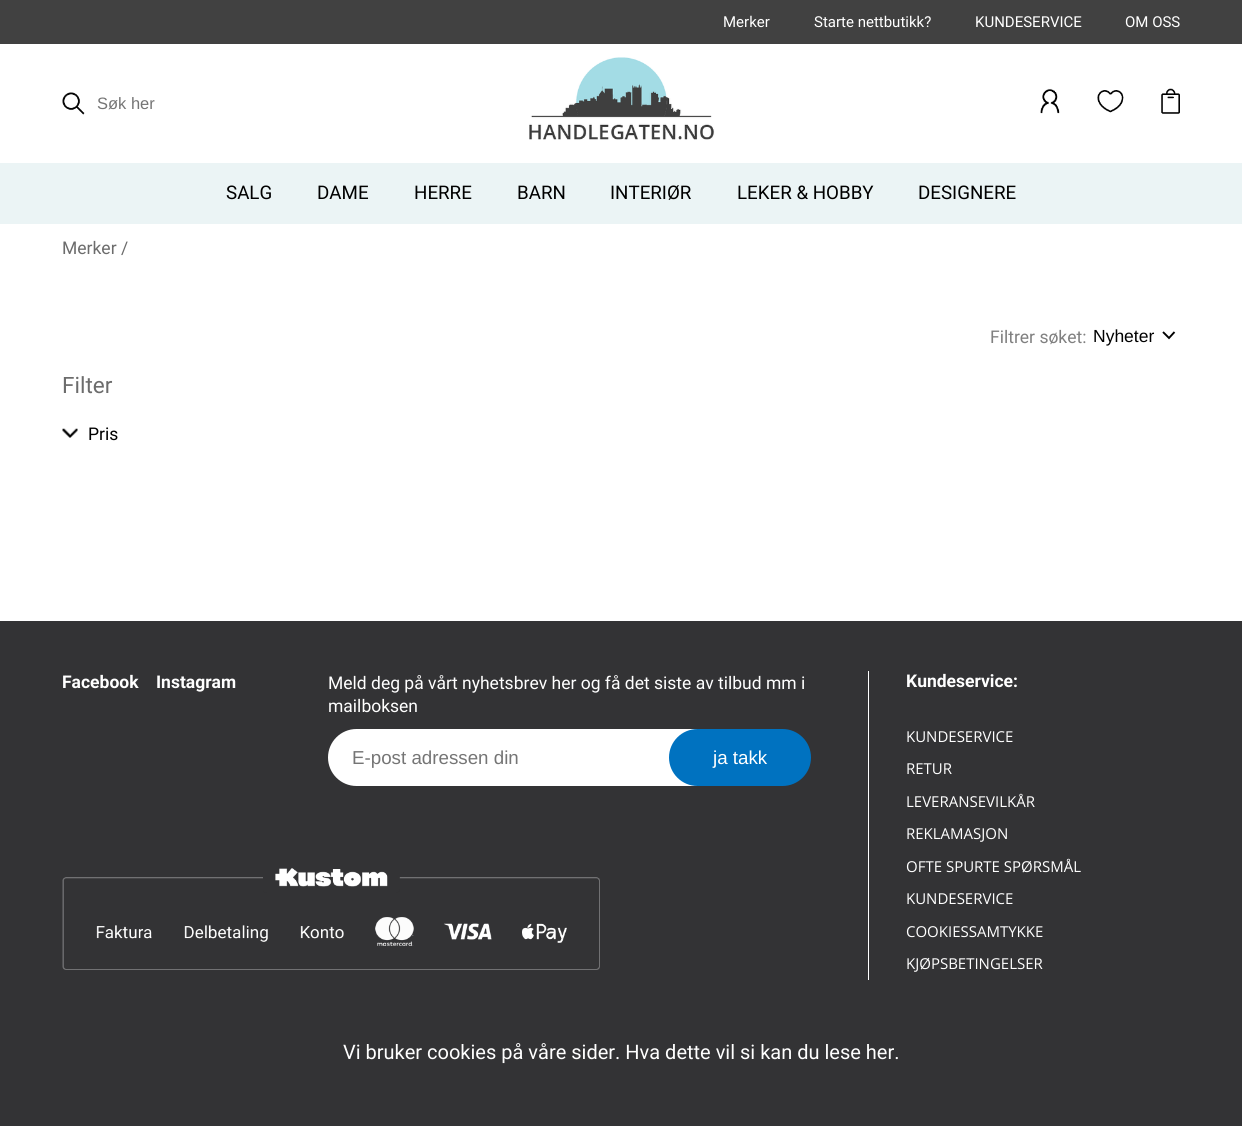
#include <cairo.h>
#include <math.h>
#include <stddef.h>

static cairo_t *ctx;

static void use_color(int r, int g, int b) {
    cairo_set_source_rgb(ctx, r / 255.0, g / 255.0, b / 255.0);
}

static void round_rect(double x, double y, double w, double h, double r) {
    cairo_new_sub_path(ctx);
    cairo_arc(ctx, x + w - r, y + h - r, r, 0, M_PI / 2);
    cairo_arc(ctx, x + r, y + h - r, r, M_PI / 2, M_PI);
    cairo_arc(ctx, x + r, y + r, r, M_PI, 1.5 * M_PI);
    cairo_arc(ctx, x + w - r, y + r, r, 1.5 * M_PI, 2 * M_PI);
    cairo_close_path(ctx);
}

static void picture(const char *path, double x, double y, double w, double h) {
    cairo_surface_t *image = cairo_image_surface_create_from_png(path);
    cairo_save(ctx);
    cairo_set_source_surface(ctx, image, x, y);
    cairo_rectangle(ctx, x, y, w, h);
    cairo_fill(ctx);
    cairo_restore(ctx);
    cairo_surface_destroy(image);
}

int main(void) {
    cairo_surface_t *surface = cairo_image_surface_create(CAIRO_FORMAT_RGB24, 1242, 1126);
    ctx = cairo_create(surface);
    cairo_font_options_t *options = cairo_font_options_create();
    cairo_font_options_set_hint_metrics(options, CAIRO_HINT_METRICS_OFF);
    cairo_font_options_set_hint_style(options, CAIRO_HINT_STYLE_NONE);
    cairo_set_font_options(ctx, options);
    cairo_set_miter_limit(ctx, 4);
    use_color(255, 255, 255);
    cairo_paint(ctx);
    use_color(65, 65, 65);
    cairo_rectangle(ctx, 0, 0, 1242, 44);
    cairo_fill(ctx);
    cairo_select_font_face(ctx, "Roboto", CAIRO_FONT_SLANT_NORMAL, CAIRO_FONT_WEIGHT_NORMAL);
    cairo_set_font_size(ctx, 15);
    use_color(255, 255, 255);
    cairo_move_to(ctx, 723, 27);
    cairo_show_text(ctx, "Merker");
    cairo_move_to(ctx, 814, 27);
    cairo_show_text(ctx, "Starte nettbutikk?");
    cairo_move_to(ctx, 975, 27);
    cairo_show_text(ctx, "KUNDESERVICE");
    cairo_move_to(ctx, 1125, 27);
    cairo_show_text(ctx, "OM OSS");
    picture("img1.png", 62, 92, 23, 23);
    cairo_select_font_face(ctx, "Liberation Sans", CAIRO_FONT_SLANT_NORMAL, CAIRO_FONT_WEIGHT_NORMAL);
    cairo_set_font_size(ctx, 16.5);
    use_color(117, 117, 117);
    cairo_move_to(ctx, 97, 109);
    cairo_show_text(ctx, "Søk her");
    picture("img2.png", 529, 57, 186, 83);
    picture("img3.png", 1040, 88, 20, 26);
    picture("img4.png", 1097, 90, 27, 23);
    picture("img5.png", 1161, 88, 19, 26);
    use_color(235, 244, 245);
    cairo_rectangle(ctx, 0, 163, 1242, 61);
    cairo_fill(ctx);
    cairo_select_font_face(ctx, "Roboto", CAIRO_FONT_SLANT_NORMAL, CAIRO_FONT_WEIGHT_NORMAL);
    cairo_set_font_size(ctx, 18.75);
    use_color(0, 0, 0);
    cairo_move_to(ctx, 226, 199);
    cairo_show_text(ctx, "SALG");
    cairo_move_to(ctx, 317, 199);
    cairo_show_text(ctx, "DAME");
    cairo_move_to(ctx, 414, 199);
    cairo_show_text(ctx, "HERRE");
    cairo_move_to(ctx, 517, 199);
    cairo_show_text(ctx, "BARN");
    cairo_move_to(ctx, 610, 199);
    cairo_show_text(ctx, "INTERIØR");
    cairo_move_to(ctx, 737, 199);
    cairo_show_text(ctx, "LEKER & HOBBY");
    cairo_move_to(ctx, 918, 199);
    cairo_show_text(ctx, "DESIGNERE");
    cairo_set_font_size(ctx, 17.5);
    use_color(108, 108, 108);
    cairo_move_to(ctx, 62, 254);
    cairo_show_text(ctx, "Merker /");
    use_color(128, 128, 128);
    cairo_move_to(ctx, 990, 343);
    cairo_show_text(ctx, "Filtrer søket:");
    cairo_select_font_face(ctx, "Liberation Sans", CAIRO_FONT_SLANT_NORMAL, CAIRO_FONT_WEIGHT_NORMAL);
    use_color(0, 0, 0);
    cairo_move_to(ctx, 1093, 342);
    cairo_show_text(ctx, "Nyheter");
    cairo_new_path(ctx);
    cairo_move_to(ctx, 1163, 332);
    cairo_line_to(ctx, 1169, 338);
    cairo_line_to(ctx, 1174.5, 332);
    cairo_set_line_width(ctx, 1.9);
    cairo_stroke(ctx);
    cairo_select_font_face(ctx, "Roboto", CAIRO_FONT_SLANT_NORMAL, CAIRO_FONT_WEIGHT_NORMAL);
    cairo_set_font_size(ctx, 22.5);
    use_color(108, 108, 108);
    cairo_move_to(ctx, 62, 393);
    cairo_show_text(ctx, "Filter");
    picture("img6.png", 62, 428, 16, 10);
    cairo_set_font_size(ctx, 17.5);
    use_color(0, 0, 0);
    cairo_move_to(ctx, 88, 440);
    cairo_show_text(ctx, "Pris");
    use_color(51, 51, 53);
    cairo_rectangle(ctx, 0, 621, 1242, 505);
    cairo_fill(ctx);
    cairo_select_font_face(ctx, "Roboto", CAIRO_FONT_SLANT_NORMAL, CAIRO_FONT_WEIGHT_BOLD);
    use_color(255, 255, 255);
    cairo_move_to(ctx, 62, 688);
    cairo_show_text(ctx, "Facebook");
    cairo_move_to(ctx, 156, 688);
    cairo_show_text(ctx, "Instagram");
    cairo_select_font_face(ctx, "Roboto", CAIRO_FONT_SLANT_NORMAL, CAIRO_FONT_WEIGHT_NORMAL);
    cairo_move_to(ctx, 328, 689);
    cairo_show_text(ctx, "Meld deg på vårt nyhetsbrev her og få det siste av tilbud mm i");
    cairo_move_to(ctx, 328, 712);
    cairo_show_text(ctx, "mailboksen");
    round_rect(328, 729, 425, 57, 28.5);
    cairo_fill(ctx);
    cairo_select_font_face(ctx, "Liberation Sans", CAIRO_FONT_SLANT_NORMAL, CAIRO_FONT_WEIGHT_NORMAL);
    cairo_set_font_size(ctx, 18.75);
    use_color(117, 117, 117);
    cairo_move_to(ctx, 352, 764);
    cairo_show_text(ctx, "E-post adressen din");
    use_color(0, 114, 192);
    round_rect(669, 729, 142, 57, 28.5);
    cairo_fill(ctx);
    use_color(255, 255, 255);
    cairo_move_to(ctx, 713, 764);
    cairo_show_text(ctx, "ja takk");
    picture("img7.png", 62, 868, 538, 102);
    cairo_rectangle(ctx, 868, 671, 1, 309);
    cairo_fill(ctx);
    cairo_select_font_face(ctx, "Roboto", CAIRO_FONT_SLANT_NORMAL, CAIRO_FONT_WEIGHT_BOLD);
    cairo_set_font_size(ctx, 17.5);
    cairo_move_to(ctx, 906, 687);
    cairo_show_text(ctx, "Kundeservice:");
    cairo_select_font_face(ctx, "Open Sans", CAIRO_FONT_SLANT_NORMAL, CAIRO_FONT_WEIGHT_NORMAL);
    cairo_set_font_size(ctx, 15);
    cairo_move_to(ctx, 906, 742);
    cairo_show_text(ctx, "KUNDESERVICE");
    cairo_move_to(ctx, 906, 774);
    cairo_show_text(ctx, "RETUR");
    cairo_move_to(ctx, 906, 807);
    cairo_show_text(ctx, "LEVERANSEVILKÅR");
    cairo_move_to(ctx, 906, 839);
    cairo_show_text(ctx, "REKLAMASJON");
    cairo_move_to(ctx, 906, 872);
    cairo_show_text(ctx, "OFTE SPURTE SPØRSMÅL");
    cairo_move_to(ctx, 906, 904);
    cairo_show_text(ctx, "KUNDESERVICE");
    cairo_move_to(ctx, 906, 937);
    cairo_show_text(ctx, "COOKIESSAMTYKKE");
    cairo_move_to(ctx, 906, 969);
    cairo_show_text(ctx, "KJØPSBETINGELSER");
    cairo_select_font_face(ctx, "Roboto", CAIRO_FONT_SLANT_NORMAL, CAIRO_FONT_WEIGHT_NORMAL);
    cairo_set_font_size(ctx, 20);
    cairo_move_to(ctx, 343, 1059);
    cairo_show_text(ctx, "Vi bruker cookies på våre sider. Hva dette vil si kan du lese her.");
    cairo_surface_write_to_png(surface, "result.png");
    cairo_font_options_destroy(options);
    cairo_destroy(ctx);
    cairo_surface_destroy(surface);
    return 0;
}
